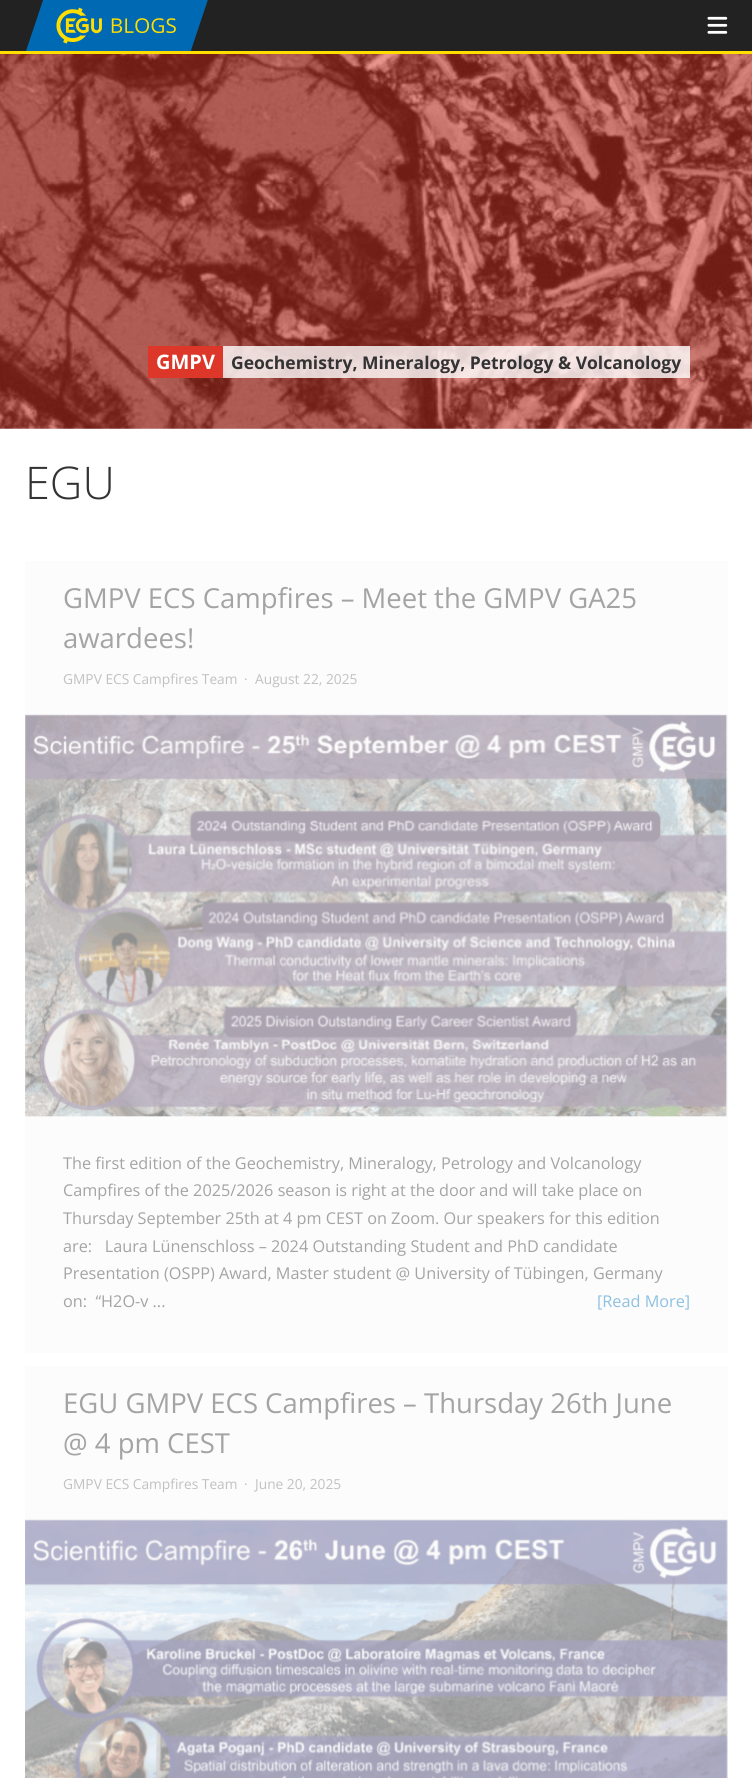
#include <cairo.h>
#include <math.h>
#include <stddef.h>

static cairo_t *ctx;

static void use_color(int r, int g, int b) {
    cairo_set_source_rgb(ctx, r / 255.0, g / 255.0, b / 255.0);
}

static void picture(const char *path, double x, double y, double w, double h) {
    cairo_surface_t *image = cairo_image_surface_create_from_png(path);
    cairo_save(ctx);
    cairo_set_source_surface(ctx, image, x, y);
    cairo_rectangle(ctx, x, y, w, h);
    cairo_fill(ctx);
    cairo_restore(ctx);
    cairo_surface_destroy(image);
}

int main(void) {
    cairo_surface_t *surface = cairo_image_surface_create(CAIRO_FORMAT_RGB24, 752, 1778);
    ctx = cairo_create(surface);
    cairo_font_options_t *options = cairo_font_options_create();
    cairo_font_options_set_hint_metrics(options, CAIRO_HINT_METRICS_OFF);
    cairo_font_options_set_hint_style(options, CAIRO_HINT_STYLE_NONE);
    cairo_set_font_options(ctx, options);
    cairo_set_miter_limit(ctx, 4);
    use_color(255, 255, 255);
    cairo_paint(ctx);
    use_color(34, 34, 34);
    cairo_rectangle(ctx, 0, 0, 752, 51);
    cairo_fill(ctx);
    use_color(255, 222, 0);
    cairo_rectangle(ctx, 0, 51, 752, 3);
    cairo_fill(ctx);
    picture("img1.png", 26, 0, 182, 51);
    picture("img2.png", 707, 16, 21, 18);
    picture("img3.png", 0, 54, 752, 375);
    use_color(220, 55, 40);
    cairo_rectangle(ctx, 148, 346, 75, 32);
    cairo_fill(ctx);
    cairo_select_font_face(ctx, "Open Sans", CAIRO_FONT_SLANT_NORMAL, CAIRO_FONT_WEIGHT_BOLD);
    cairo_set_font_size(ctx, 20);
    use_color(255, 255, 255);
    cairo_move_to(ctx, 156, 369);
    cairo_show_text(ctx, "GMPV");
    cairo_set_source_rgba(ctx, 1, 1, 1, 0.8);
    cairo_rectangle(ctx, 223, 346, 467, 32);
    cairo_fill(ctx);
    cairo_set_font_size(ctx, 17.5);
    use_color(51, 51, 51);
    cairo_move_to(ctx, 231, 369);
    cairo_show_text(ctx, "Geochemistry, Mineralogy, Petrology & Volcanology");
    cairo_select_font_face(ctx, "Open Sans Light", CAIRO_FONT_SLANT_NORMAL, CAIRO_FONT_WEIGHT_NORMAL);
    cairo_set_font_size(ctx, 45);
    cairo_move_to(ctx, 25, 499);
    cairo_show_text(ctx, "EGU");
    use_color(252, 252, 252);
    cairo_rectangle(ctx, 25, 561, 703, 792);
    cairo_fill(ctx);
    cairo_select_font_face(ctx, "Open Sans", CAIRO_FONT_SLANT_NORMAL, CAIRO_FONT_WEIGHT_NORMAL);
    cairo_set_font_size(ctx, 27.5);
    use_color(164, 164, 164);
    cairo_move_to(ctx, 63, 608);
    cairo_show_text(ctx, "GMPV ECS Campfires – Meet the GMPV GA25");
    cairo_move_to(ctx, 63, 648);
    cairo_show_text(ctx, "awardees!");
    cairo_set_font_size(ctx, 13.75);
    use_color(193, 193, 193);
    cairo_move_to(ctx, 63, 684);
    cairo_show_text(ctx, "GMPV ECS Campfires Team");
    cairo_move_to(ctx, 244, 684);
    cairo_show_text(ctx, "·");
    cairo_move_to(ctx, 255, 684);
    cairo_show_text(ctx, "August 22, 2025");
    picture("img4.png", 25, 714, 703, 403);
    cairo_set_font_size(ctx, 16.25);
    use_color(164, 164, 164);
    cairo_move_to(ctx, 63, 1169);
    cairo_show_text(ctx, "The first edition of the Geochemistry, Mineralogy, Petrology and Volcanology");
    cairo_move_to(ctx, 63, 1196);
    cairo_show_text(ctx, "Campfires of the 2025/2026 season is right at the door and will take place on");
    cairo_move_to(ctx, 63, 1224);
    cairo_show_text(ctx, "Thursday September 25th at 4 pm CEST on Zoom. Our speakers for this edition");
    cairo_move_to(ctx, 63, 1252);
    cairo_show_text(ctx, "are:   Laura Lünenschloss – 2024 Outstanding Student and PhD candidate");
    cairo_move_to(ctx, 63, 1279);
    cairo_show_text(ctx, "Presentation (OSPP) Award, Master student @ University of Tübingen, Germany");
    cairo_move_to(ctx, 63, 1307);
    cairo_show_text(ctx, "on:  “H2O-v ...");
    use_color(141, 192, 225);
    cairo_move_to(ctx, 597, 1307);
    cairo_show_text(ctx, "[Read More]");
    use_color(252, 252, 252);
    cairo_rectangle(ctx, 25, 1366, 703, 412);
    cairo_fill(ctx);
    cairo_set_font_size(ctx, 27.5);
    use_color(164, 164, 164);
    cairo_move_to(ctx, 63, 1413);
    cairo_show_text(ctx, "EGU GMPV ECS Campfires – Thursday 26th June");
    cairo_move_to(ctx, 63, 1453);
    cairo_show_text(ctx, "@ 4 pm CEST");
    cairo_set_font_size(ctx, 13.75);
    use_color(193, 193, 193);
    cairo_move_to(ctx, 63, 1489);
    cairo_show_text(ctx, "GMPV ECS Campfires Team");
    cairo_move_to(ctx, 244, 1489);
    cairo_show_text(ctx, "·");
    cairo_move_to(ctx, 255, 1489);
    cairo_show_text(ctx, "June 20, 2025");
    picture("img5.png", 25, 1519, 703, 259);
    cairo_surface_write_to_png(surface, "result.png");
    cairo_font_options_destroy(options);
    cairo_destroy(ctx);
    cairo_surface_destroy(surface);
    return 0;
}
